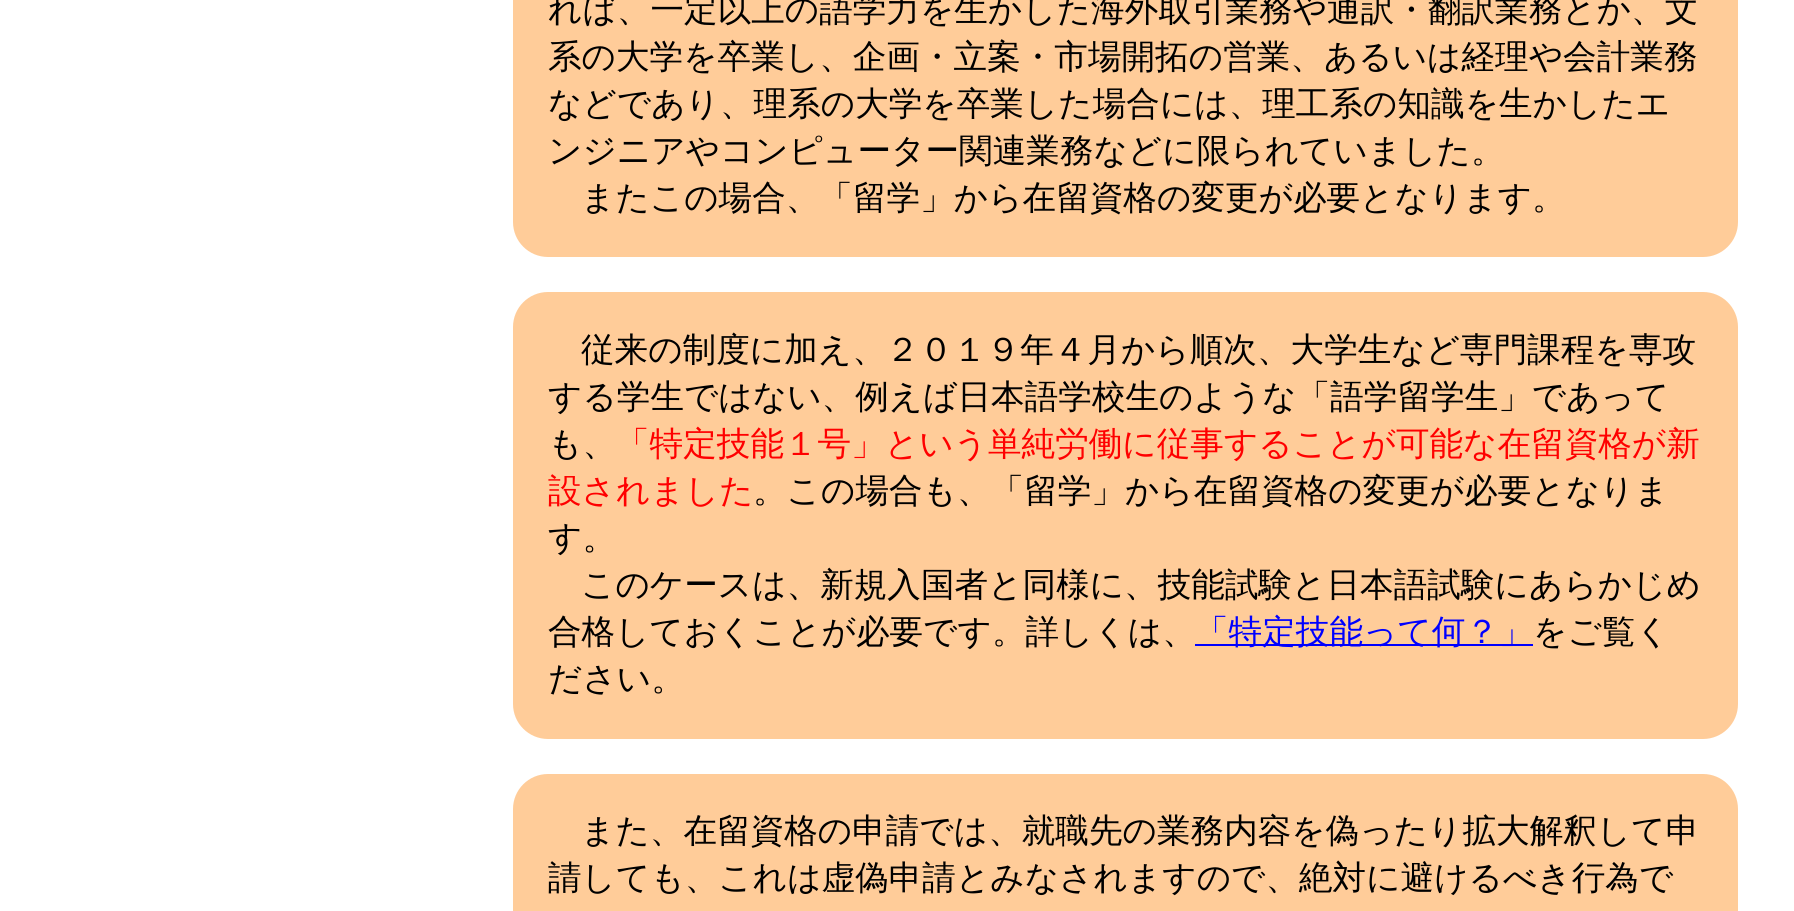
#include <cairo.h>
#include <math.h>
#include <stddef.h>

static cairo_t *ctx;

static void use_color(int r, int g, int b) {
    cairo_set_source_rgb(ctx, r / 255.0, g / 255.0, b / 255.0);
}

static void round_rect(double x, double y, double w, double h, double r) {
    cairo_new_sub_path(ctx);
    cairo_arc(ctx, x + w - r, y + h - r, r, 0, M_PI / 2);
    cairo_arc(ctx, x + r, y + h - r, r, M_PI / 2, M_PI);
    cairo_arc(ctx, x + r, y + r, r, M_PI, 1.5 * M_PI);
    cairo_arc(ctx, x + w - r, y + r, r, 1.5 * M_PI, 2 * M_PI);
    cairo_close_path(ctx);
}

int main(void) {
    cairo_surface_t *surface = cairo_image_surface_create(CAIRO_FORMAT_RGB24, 1794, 911);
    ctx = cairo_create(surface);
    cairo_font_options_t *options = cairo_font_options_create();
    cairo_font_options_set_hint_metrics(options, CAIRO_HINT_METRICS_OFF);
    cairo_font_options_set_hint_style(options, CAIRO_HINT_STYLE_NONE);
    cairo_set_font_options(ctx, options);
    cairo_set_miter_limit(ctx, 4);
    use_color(255, 255, 255);
    cairo_paint(ctx);
    use_color(255, 204, 153);
    round_rect(513, -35, 1225, 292, 35);
    cairo_fill(ctx);
    cairo_select_font_face(ctx, "WenQuanYi Zen Hei Medium", CAIRO_FONT_SLANT_NORMAL, CAIRO_FONT_WEIGHT_NORMAL);
    cairo_set_font_size(ctx, 33.6);
    use_color(0, 0, 0);
    cairo_move_to(ctx, 548, 21);
    cairo_show_text(ctx, "れば、一定以上の語学力を生かした海外取引業務や通訳・翻訳業務とか、文");
    cairo_move_to(ctx, 548, 68);
    cairo_show_text(ctx, "系の大学を卒業し、企画・立案・市場開拓の営業、あるいは経理や会計業務");
    cairo_move_to(ctx, 548, 115);
    cairo_show_text(ctx, "などであり、理系の大学を卒業した場合には、理工系の知識を生かしたエ");
    cairo_move_to(ctx, 548, 162);
    cairo_show_text(ctx, "ンジニアやコンピューター関連業務などに限られていました。");
    cairo_move_to(ctx, 581, 209);
    cairo_show_text(ctx, "またこの場合、「留学」から在留資格の変更が必要となります。");
    use_color(255, 204, 153);
    round_rect(513, 292, 1225, 447, 35);
    cairo_fill(ctx);
    use_color(0, 0, 0);
    cairo_move_to(ctx, 581, 361);
    cairo_show_text(ctx, "従来の制度に加え、２０１９年４月から順次、大学生など専門課程を専攻");
    cairo_move_to(ctx, 548, 408);
    cairo_show_text(ctx, "する学生ではない、例えば日本語学校生のような「語学留学生」であって");
    cairo_move_to(ctx, 548, 455);
    cairo_show_text(ctx, "も、");
    use_color(255, 0, 0);
    cairo_move_to(ctx, 616, 455);
    cairo_show_text(ctx, "「特定技能１号」という単純労働に従事することが可能な在留資格が新");
    cairo_move_to(ctx, 548, 502);
    cairo_show_text(ctx, "設されました");
    use_color(0, 0, 0);
    cairo_move_to(ctx, 753, 502);
    cairo_show_text(ctx, "。この場合も、「留学」から在留資格の変更が必要となりま");
    cairo_move_to(ctx, 548, 549);
    cairo_show_text(ctx, "す。");
    cairo_move_to(ctx, 581, 596);
    cairo_show_text(ctx, "このケースは、新規入国者と同様に、技能試験と日本語試験にあらかじめ");
    cairo_move_to(ctx, 548, 643);
    cairo_show_text(ctx, "合格しておくことが必要です。詳しくは、");
    use_color(0, 0, 255);
    cairo_rectangle(ctx, 1195, 644, 338, 2);
    cairo_fill(ctx);
    cairo_move_to(ctx, 1195, 643);
    cairo_show_text(ctx, "「特定技能って何？」");
    use_color(0, 0, 0);
    cairo_move_to(ctx, 1533, 643);
    cairo_show_text(ctx, "をご覧く");
    cairo_move_to(ctx, 548, 690);
    cairo_show_text(ctx, "ださい。");
    use_color(255, 204, 153);
    round_rect(513, 774, 1225, 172, 35);
    cairo_fill(ctx);
    use_color(0, 0, 0);
    cairo_move_to(ctx, 581, 842);
    cairo_show_text(ctx, "また、在留資格の申請では、就職先の業務内容を偽ったり拡大解釈して申");
    cairo_move_to(ctx, 548, 889);
    cairo_show_text(ctx, "請しても、これは虚偽申請とみなされますので、絶対に避けるべき行為で");
    cairo_surface_write_to_png(surface, "result.png");
    cairo_font_options_destroy(options);
    cairo_destroy(ctx);
    cairo_surface_destroy(surface);
    return 0;
}
